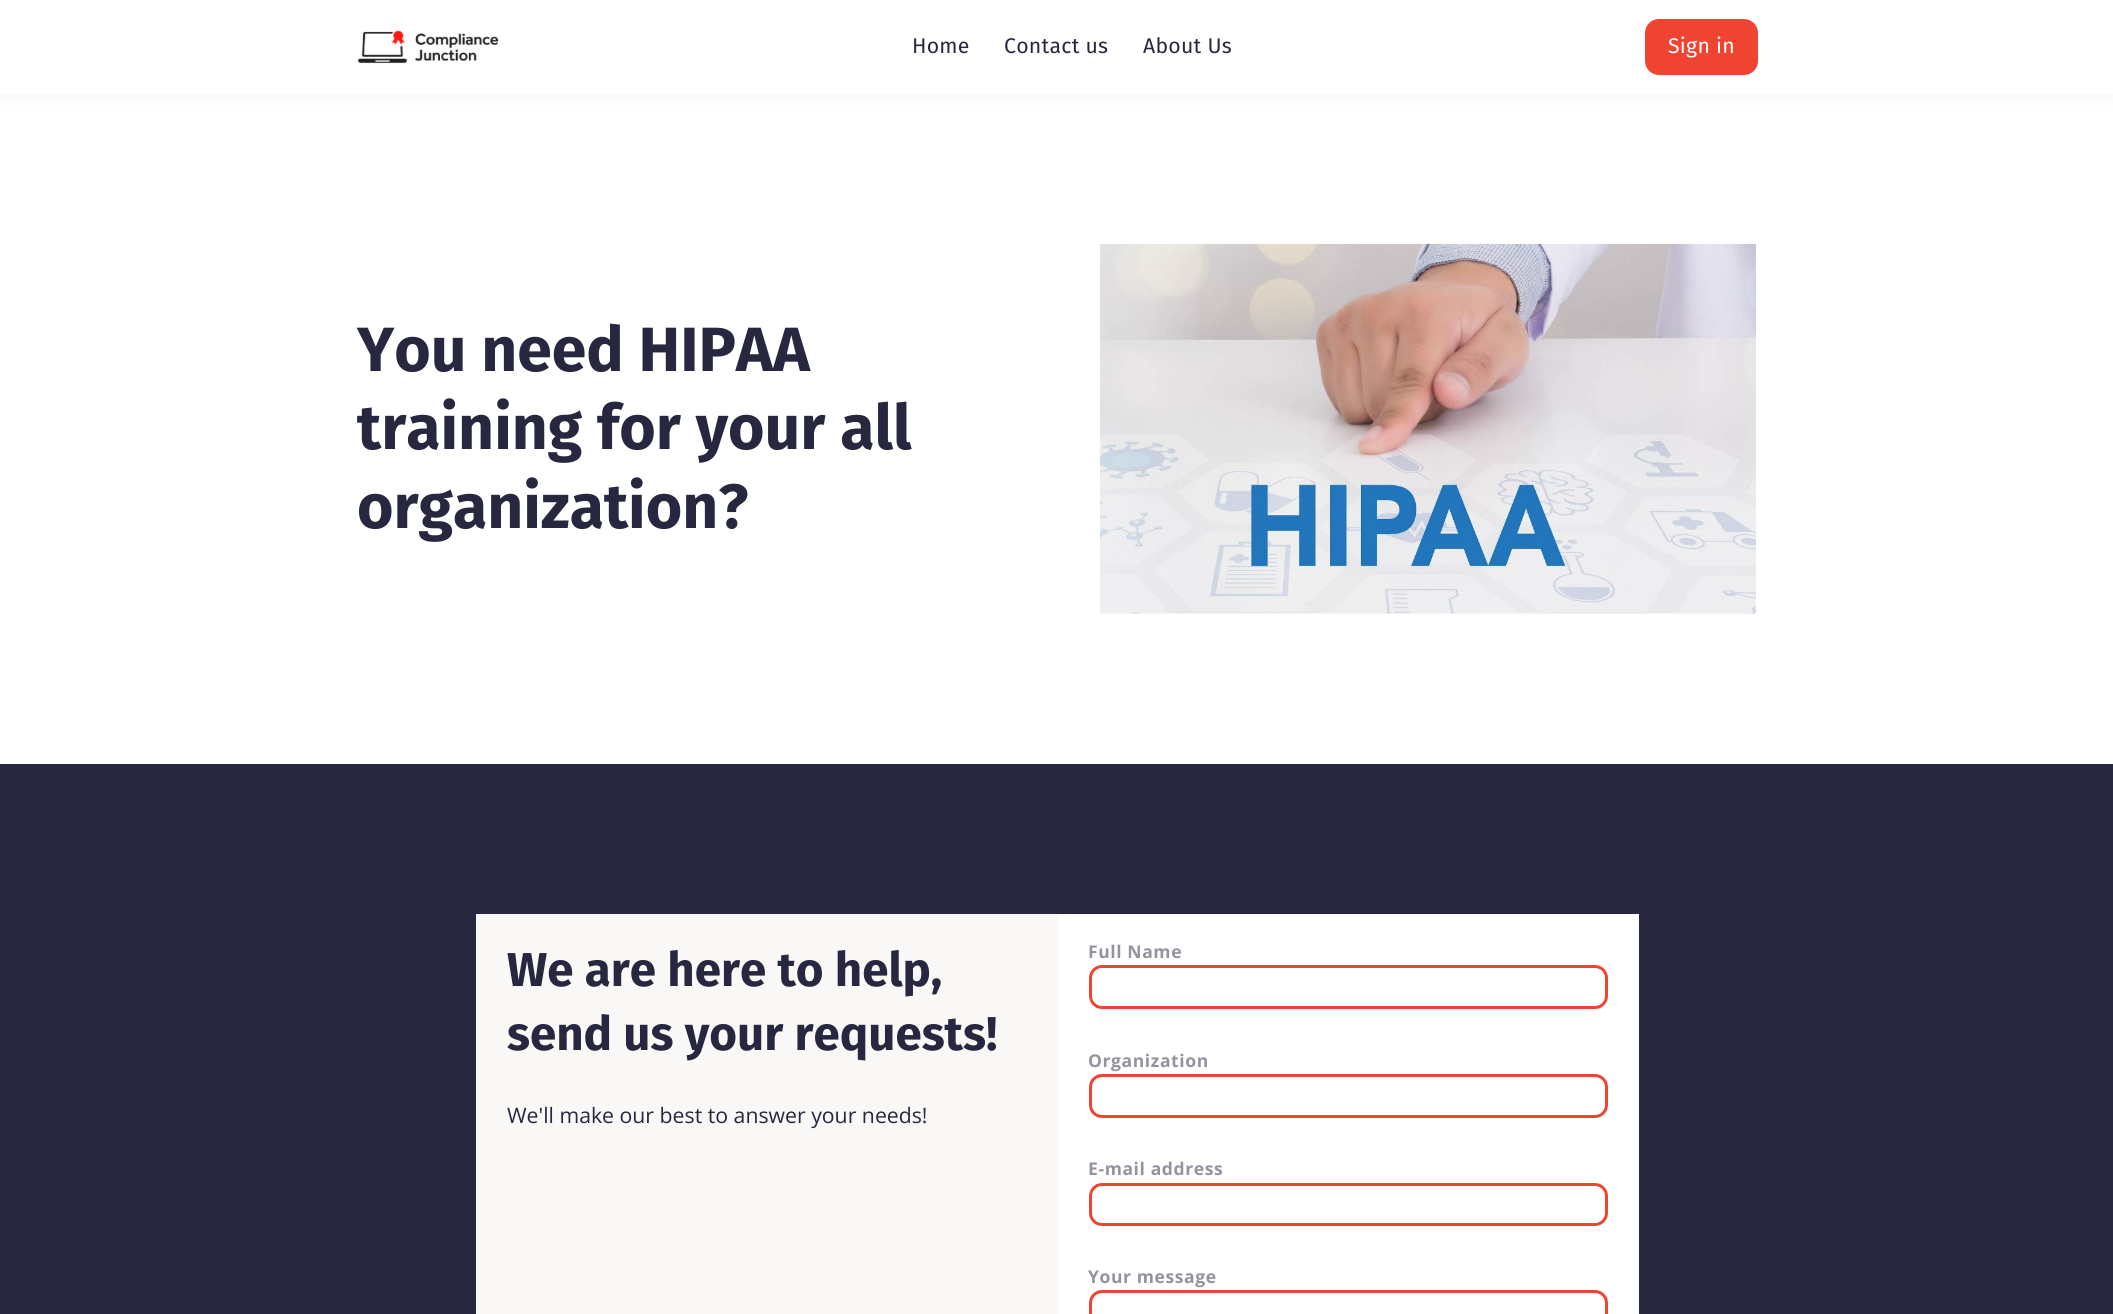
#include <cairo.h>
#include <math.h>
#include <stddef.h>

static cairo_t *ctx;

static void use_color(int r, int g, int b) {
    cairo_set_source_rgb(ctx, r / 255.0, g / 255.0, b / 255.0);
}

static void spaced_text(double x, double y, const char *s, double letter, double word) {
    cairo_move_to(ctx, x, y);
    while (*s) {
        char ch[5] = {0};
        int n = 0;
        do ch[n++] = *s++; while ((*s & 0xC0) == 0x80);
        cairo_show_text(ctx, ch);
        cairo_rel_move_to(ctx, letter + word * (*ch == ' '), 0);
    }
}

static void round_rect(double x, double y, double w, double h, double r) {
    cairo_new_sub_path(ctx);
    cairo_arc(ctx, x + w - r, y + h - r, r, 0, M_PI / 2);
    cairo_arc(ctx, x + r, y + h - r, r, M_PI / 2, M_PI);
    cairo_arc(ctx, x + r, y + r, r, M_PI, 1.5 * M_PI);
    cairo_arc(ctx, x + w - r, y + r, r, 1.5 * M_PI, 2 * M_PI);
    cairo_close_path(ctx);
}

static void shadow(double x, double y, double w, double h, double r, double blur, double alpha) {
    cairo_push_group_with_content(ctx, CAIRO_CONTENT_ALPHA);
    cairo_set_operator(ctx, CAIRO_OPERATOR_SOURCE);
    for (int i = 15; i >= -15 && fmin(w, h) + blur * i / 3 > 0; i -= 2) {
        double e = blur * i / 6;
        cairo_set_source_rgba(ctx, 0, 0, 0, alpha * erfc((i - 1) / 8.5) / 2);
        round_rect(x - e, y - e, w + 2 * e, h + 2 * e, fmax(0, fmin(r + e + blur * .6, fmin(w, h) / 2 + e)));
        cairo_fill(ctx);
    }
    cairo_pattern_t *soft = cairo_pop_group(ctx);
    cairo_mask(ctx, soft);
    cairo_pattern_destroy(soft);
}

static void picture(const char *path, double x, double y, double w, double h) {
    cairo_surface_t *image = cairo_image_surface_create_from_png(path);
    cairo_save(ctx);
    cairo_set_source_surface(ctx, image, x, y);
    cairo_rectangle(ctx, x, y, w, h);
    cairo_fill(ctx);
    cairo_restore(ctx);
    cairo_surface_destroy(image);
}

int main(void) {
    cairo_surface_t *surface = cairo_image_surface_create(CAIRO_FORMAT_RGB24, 2113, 1314);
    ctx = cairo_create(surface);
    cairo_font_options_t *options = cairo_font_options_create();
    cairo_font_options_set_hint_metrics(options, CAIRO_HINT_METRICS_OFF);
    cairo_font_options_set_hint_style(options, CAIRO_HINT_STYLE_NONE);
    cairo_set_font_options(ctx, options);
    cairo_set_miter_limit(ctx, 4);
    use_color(255, 255, 255);
    cairo_paint(ctx);
    use_color(0, 0, 0);
    shadow(0, 0, 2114, 94, 0, 9.5, 0.05);
    use_color(255, 255, 255);
    cairo_rectangle(ctx, 0, 0, 2113, 94);
    cairo_fill(ctx);
    picture("img1.png", 357, 30, 142, 34);
    cairo_select_font_face(ctx, "Fira Sans", CAIRO_FONT_SLANT_NORMAL, CAIRO_FONT_WEIGHT_NORMAL);
    cairo_set_font_size(ctx, 21.25);
    use_color(39, 39, 64);
    spaced_text(912, 53, "Home", 0.25, 0);
    spaced_text(1004, 53, "Contact us", 0.25, 0);
    spaced_text(1143, 53, "About Us", 0.25, 0);
    use_color(239, 68, 50);
    round_rect(1645, 19, 113, 56, 14);
    cairo_fill(ctx);
    use_color(255, 255, 255);
    spaced_text(1668, 53, "Sign in", 0.25, 0);
    cairo_select_font_face(ctx, "Fira Sans", CAIRO_FONT_SLANT_NORMAL, CAIRO_FONT_WEIGHT_BOLD);
    cairo_set_font_size(ctx, 62.5);
    use_color(39, 39, 64);
    cairo_move_to(ctx, 357, 371);
    cairo_show_text(ctx, "You need HIPAA");
    cairo_move_to(ctx, 357, 449);
    cairo_show_text(ctx, "training for your all");
    cairo_move_to(ctx, 357, 528);
    cairo_show_text(ctx, "organization?");
    picture("img2.png", 1100, 243, 656, 371);
    cairo_rectangle(ctx, 0, 764, 2113, 550);
    cairo_fill(ctx);
    use_color(250, 248, 246);
    cairo_rectangle(ctx, 476, 914, 582, 400);
    cairo_fill(ctx);
    cairo_set_font_size(ctx, 47.5);
    use_color(39, 39, 64);
    cairo_move_to(ctx, 507, 986);
    cairo_show_text(ctx, "We are here to help,");
    cairo_move_to(ctx, 507, 1050);
    cairo_show_text(ctx, "send us your requests!");
    cairo_select_font_face(ctx, "Open Sans", CAIRO_FONT_SLANT_NORMAL, CAIRO_FONT_WEIGHT_NORMAL);
    cairo_set_font_size(ctx, 21.25);
    cairo_move_to(ctx, 507, 1123);
    cairo_show_text(ctx, "We'll make our best to answer your needs!");
    use_color(255, 255, 255);
    cairo_rectangle(ctx, 1058, 914, 581, 400);
    cairo_fill(ctx);
    cairo_select_font_face(ctx, "Open Sans", CAIRO_FONT_SLANT_NORMAL, CAIRO_FONT_WEIGHT_BOLD);
    cairo_set_font_size(ctx, 17.5);
    use_color(147, 147, 160);
    spaced_text(1088, 958, "Full Name", 0.6, 0);
    round_rect(1090.5, 966.5, 516, 41, 11.5);
    use_color(239, 68, 50);
    cairo_set_line_width(ctx, 3);
    cairo_stroke(ctx);
    use_color(147, 147, 160);
    spaced_text(1088, 1067, "Organization", 0.6, 0);
    round_rect(1090.5, 1075.5, 516, 41, 11.5);
    use_color(239, 68, 50);
    cairo_stroke(ctx);
    use_color(147, 147, 160);
    spaced_text(1088, 1175, "E-mail address", 0.6, 0);
    round_rect(1090.5, 1184.5, 516, 40, 11.5);
    use_color(239, 68, 50);
    cairo_stroke(ctx);
    use_color(147, 147, 160);
    spaced_text(1088, 1283, "Your message", 0.6, 0);
    round_rect(1090.5, 1291.5, 516, 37, 11.5);
    use_color(239, 68, 50);
    cairo_stroke(ctx);
    cairo_surface_write_to_png(surface, "result.png");
    cairo_font_options_destroy(options);
    cairo_destroy(ctx);
    cairo_surface_destroy(surface);
    return 0;
}
